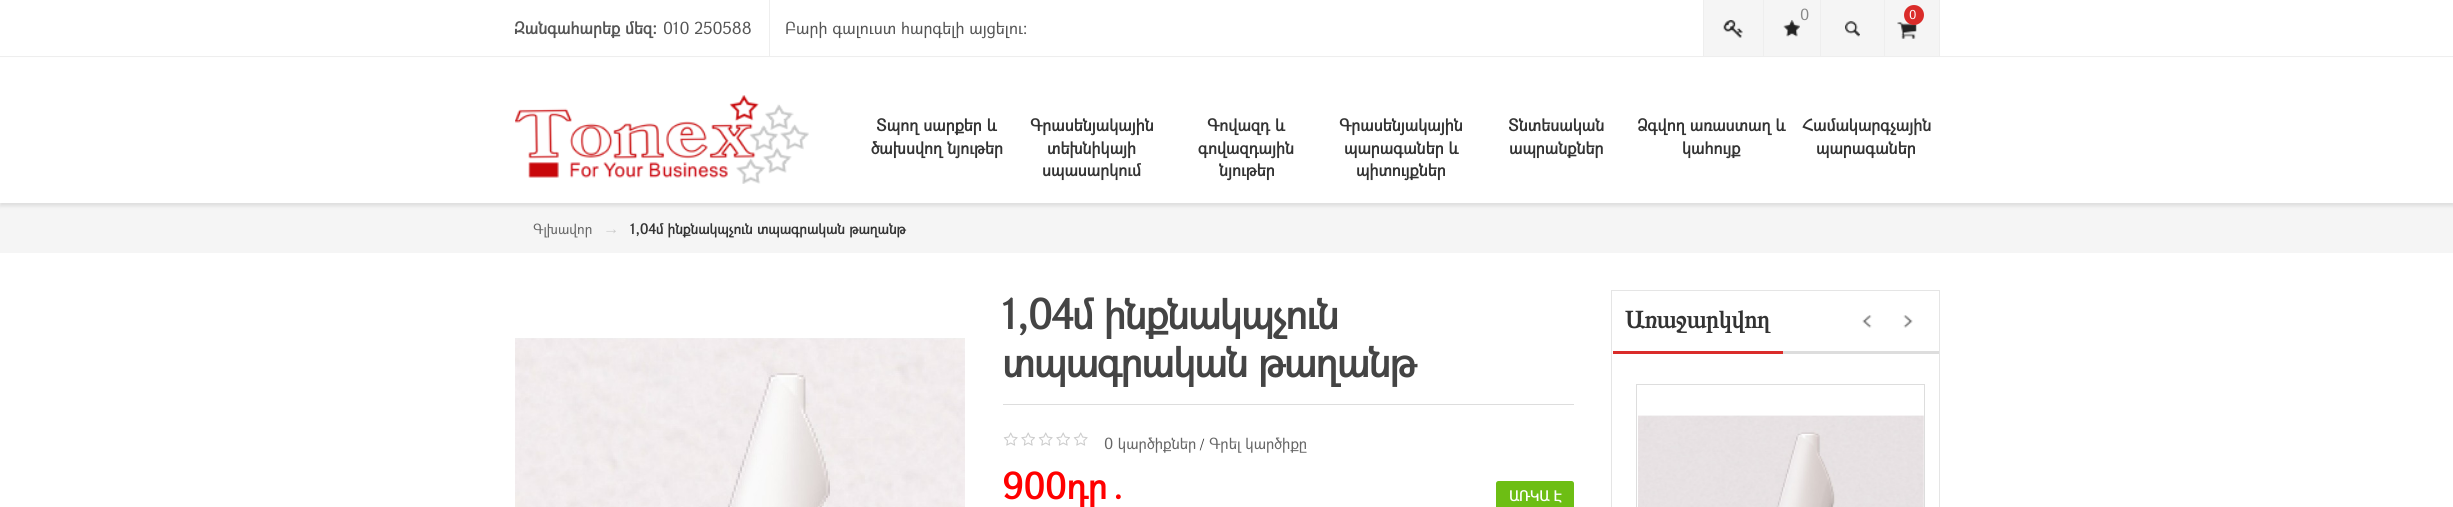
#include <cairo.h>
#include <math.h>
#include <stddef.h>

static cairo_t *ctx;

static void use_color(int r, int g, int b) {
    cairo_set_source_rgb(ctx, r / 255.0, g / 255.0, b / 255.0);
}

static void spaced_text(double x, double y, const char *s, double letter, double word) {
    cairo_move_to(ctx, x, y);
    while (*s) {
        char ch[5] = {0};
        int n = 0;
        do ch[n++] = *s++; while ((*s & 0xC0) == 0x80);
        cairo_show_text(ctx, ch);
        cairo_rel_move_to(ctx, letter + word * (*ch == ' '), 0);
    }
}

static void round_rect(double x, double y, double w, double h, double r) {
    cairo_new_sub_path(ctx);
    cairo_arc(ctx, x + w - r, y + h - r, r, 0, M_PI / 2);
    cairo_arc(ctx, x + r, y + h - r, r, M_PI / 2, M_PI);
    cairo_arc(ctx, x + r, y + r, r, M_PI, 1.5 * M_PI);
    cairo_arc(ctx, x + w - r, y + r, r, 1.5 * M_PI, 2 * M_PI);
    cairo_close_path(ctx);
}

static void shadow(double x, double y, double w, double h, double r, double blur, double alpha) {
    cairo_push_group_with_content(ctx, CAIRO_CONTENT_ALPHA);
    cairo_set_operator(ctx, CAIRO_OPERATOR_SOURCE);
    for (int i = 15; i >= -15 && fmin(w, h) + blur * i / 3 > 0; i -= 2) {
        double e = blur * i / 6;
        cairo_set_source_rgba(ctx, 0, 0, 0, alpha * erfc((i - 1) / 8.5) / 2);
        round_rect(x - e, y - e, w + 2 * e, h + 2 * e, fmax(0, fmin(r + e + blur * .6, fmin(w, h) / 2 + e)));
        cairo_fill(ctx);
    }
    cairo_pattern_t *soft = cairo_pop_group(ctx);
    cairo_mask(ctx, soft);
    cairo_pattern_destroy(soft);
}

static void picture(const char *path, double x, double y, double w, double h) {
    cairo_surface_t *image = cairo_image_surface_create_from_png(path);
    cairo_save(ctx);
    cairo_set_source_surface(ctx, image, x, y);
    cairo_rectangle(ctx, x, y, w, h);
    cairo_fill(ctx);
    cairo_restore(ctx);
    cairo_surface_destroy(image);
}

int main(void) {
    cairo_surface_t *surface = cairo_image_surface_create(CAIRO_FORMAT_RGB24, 2453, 507);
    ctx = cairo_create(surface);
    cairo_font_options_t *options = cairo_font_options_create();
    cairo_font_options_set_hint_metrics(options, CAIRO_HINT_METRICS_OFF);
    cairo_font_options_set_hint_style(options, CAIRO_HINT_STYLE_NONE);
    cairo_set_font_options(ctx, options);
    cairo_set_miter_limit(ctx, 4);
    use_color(255, 255, 255);
    cairo_paint(ctx);
    use_color(238, 238, 238);
    cairo_rectangle(ctx, 0, 56, 2453, 1);
    cairo_fill(ctx);
    use_color(245, 245, 245);
    cairo_rectangle(ctx, 1704, 0, 59, 56);
    cairo_fill(ctx);
    use_color(238, 238, 238);
    cairo_rectangle(ctx, 1703, 0, 1, 56);
    cairo_fill(ctx);
    picture("img1.png", 1723, 20, 20, 18);
    use_color(245, 245, 245);
    cairo_rectangle(ctx, 1764, 0, 56, 56);
    cairo_fill(ctx);
    use_color(238, 238, 238);
    cairo_rectangle(ctx, 1820, 0, 1, 56);
    cairo_fill(ctx);
    cairo_rectangle(ctx, 1763, 0, 1, 56);
    cairo_fill(ctx);
    cairo_select_font_face(ctx, "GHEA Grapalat", CAIRO_FONT_SLANT_NORMAL, CAIRO_FONT_WEIGHT_NORMAL);
    cairo_set_font_size(ctx, 15);
    use_color(136, 136, 136);
    cairo_move_to(ctx, 1800, 20);
    cairo_show_text(ctx, "0");
    picture("img2.png", 1783, 20, 17, 17);
    use_color(245, 245, 245);
    cairo_rectangle(ctx, 1821, 0, 63, 56);
    cairo_fill(ctx);
    picture("img3.png", 1845, 21, 15, 16);
    cairo_rectangle(ctx, 1885, 0, 54, 56);
    cairo_fill(ctx);
    use_color(238, 238, 238);
    cairo_rectangle(ctx, 1939, 0, 1, 56);
    cairo_fill(ctx);
    cairo_rectangle(ctx, 1884, 0, 1, 56);
    cairo_fill(ctx);
    picture("img4.png", 1897, 22, 20, 17);
    use_color(218, 44, 42);
    cairo_arc(ctx, 1914, 15, 10, 0, 2 * M_PI);
    cairo_fill(ctx);
    cairo_set_font_size(ctx, 12);
    use_color(255, 255, 255);
    cairo_move_to(ctx, 1909, 19);
    cairo_show_text(ctx, "0");
    use_color(238, 238, 238);
    cairo_rectangle(ctx, 769, 0, 1, 56);
    cairo_fill(ctx);
    cairo_select_font_face(ctx, "GHEA Grapalat", CAIRO_FONT_SLANT_NORMAL, CAIRO_FONT_WEIGHT_BOLD);
    cairo_set_font_size(ctx, 16.25);
    use_color(85, 85, 85);
    cairo_move_to(ctx, 514, 34);
    cairo_show_text(ctx, "Զանգահարեք մեզ:");
    cairo_select_font_face(ctx, "GHEA Grapalat", CAIRO_FONT_SLANT_NORMAL, CAIRO_FONT_WEIGHT_NORMAL);
    cairo_move_to(ctx, 663, 34);
    cairo_show_text(ctx, "010 250588");
    cairo_move_to(ctx, 785, 34);
    cairo_show_text(ctx, "Բարի գալուստ հարգելի այցելու։");
    use_color(245, 245, 245);
    cairo_rectangle(ctx, 0, 203, 2453, 50);
    cairo_fill(ctx);
    use_color(0, 0, 0);
    shadow(0, 61, 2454, 145, 0, 2, 0.1);
    use_color(255, 255, 255);
    cairo_rectangle(ctx, 0, 58, 2453, 145);
    cairo_fill(ctx);
    picture("img5.png", 515, 95, 294, 89);
    cairo_select_font_face(ctx, "GHEA Grapalat", CAIRO_FONT_SLANT_NORMAL, CAIRO_FONT_WEIGHT_BOLD);
    use_color(51, 51, 51);
    cairo_move_to(ctx, 876, 131);
    cairo_show_text(ctx, "Տպող սարքեր և");
    cairo_move_to(ctx, 871, 154);
    cairo_show_text(ctx, "ծախսվող նյութեր");
    cairo_move_to(ctx, 1030, 131);
    cairo_show_text(ctx, "Գրասենյակային");
    cairo_move_to(ctx, 1047, 154);
    cairo_show_text(ctx, "տեխնիկայի");
    cairo_move_to(ctx, 1042, 176);
    cairo_show_text(ctx, "սպասարկում");
    cairo_move_to(ctx, 1207, 131);
    cairo_show_text(ctx, "Գովազդ և");
    cairo_move_to(ctx, 1198, 154);
    cairo_show_text(ctx, "գովազդային");
    cairo_move_to(ctx, 1219, 176);
    cairo_show_text(ctx, "նյութեր");
    cairo_move_to(ctx, 1339, 131);
    cairo_show_text(ctx, "Գրասենյակային");
    cairo_move_to(ctx, 1344, 154);
    cairo_show_text(ctx, "պարագաներ և");
    cairo_move_to(ctx, 1356, 176);
    cairo_show_text(ctx, "պիտույքներ");
    cairo_move_to(ctx, 1508, 131);
    cairo_show_text(ctx, "Տնտեսական");
    cairo_move_to(ctx, 1509, 154);
    cairo_show_text(ctx, "ապրանքներ");
    cairo_move_to(ctx, 1637, 131);
    cairo_show_text(ctx, "Ձգվող առաստաղ և");
    cairo_move_to(ctx, 1682, 154);
    cairo_show_text(ctx, "կահույք");
    cairo_move_to(ctx, 1802, 131);
    cairo_show_text(ctx, "Համակարգչային");
    cairo_move_to(ctx, 1816, 154);
    cairo_show_text(ctx, "պարագաներ");
    cairo_select_font_face(ctx, "GHEA Grapalat", CAIRO_FONT_SLANT_NORMAL, CAIRO_FONT_WEIGHT_NORMAL);
    cairo_set_font_size(ctx, 13.75);
    use_color(102, 102, 102);
    cairo_move_to(ctx, 533, 234);
    cairo_show_text(ctx, "Գլխավոր");
    cairo_select_font_face(ctx, "Liberation Serif", CAIRO_FONT_SLANT_NORMAL, CAIRO_FONT_WEIGHT_NORMAL);
    cairo_set_font_size(ctx, 16.25);
    use_color(204, 204, 204);
    cairo_move_to(ctx, 603, 234);
    cairo_show_text(ctx, "→");
    cairo_select_font_face(ctx, "GHEA Grapalat", CAIRO_FONT_SLANT_NORMAL, CAIRO_FONT_WEIGHT_BOLD);
    cairo_set_font_size(ctx, 13.75);
    use_color(51, 51, 51);
    cairo_move_to(ctx, 630, 234);
    cairo_show_text(ctx, "1,04մ ինքնակպչուն տպագրական թաղանթ");
    picture("img6.png", 515, 338, 450, 169);
    use_color(221, 221, 221);
    cairo_rectangle(ctx, 1003, 404, 571, 1);
    cairo_fill(ctx);
    cairo_set_font_size(ctx, 40);
    use_color(68, 68, 68);
    spaced_text(1002, 329, "1,04մ ինքնակպչուն", -1.25, 0);
    spaced_text(1002, 377, "տպագրական թաղանթ", -1.25, 0);
    picture("img7.png", 1003, 432, 15, 14);
    picture("img8.png", 1021, 432, 14, 14);
    picture("img7.png", 1038, 432, 15, 14);
    picture("img8.png", 1056, 432, 14, 14);
    picture("img7.png", 1073, 432, 15, 14);
    cairo_select_font_face(ctx, "GHEA Grapalat", CAIRO_FONT_SLANT_NORMAL, CAIRO_FONT_WEIGHT_NORMAL);
    cairo_set_font_size(ctx, 15);
    use_color(102, 102, 102);
    cairo_move_to(ctx, 1104, 449);
    cairo_show_text(ctx, "0 կարծիքներ");
    cairo_set_font_size(ctx, 13.75);
    use_color(51, 51, 51);
    cairo_move_to(ctx, 1200, 449);
    cairo_show_text(ctx, "/");
    cairo_set_font_size(ctx, 15);
    use_color(102, 102, 102);
    cairo_move_to(ctx, 1209, 449);
    cairo_show_text(ctx, "Գրել կարծիքը");
    cairo_select_font_face(ctx, "GHEA Grapalat", CAIRO_FONT_SLANT_NORMAL, CAIRO_FONT_WEIGHT_BOLD);
    cairo_set_font_size(ctx, 35);
    use_color(255, 0, 0);
    cairo_move_to(ctx, 1002, 499);
    cairo_show_text(ctx, "900դր");
    cairo_select_font_face(ctx, "FreeSerif", CAIRO_FONT_SLANT_NORMAL, CAIRO_FONT_WEIGHT_BOLD);
    cairo_move_to(ctx, 1107, 499);
    cairo_show_text(ctx, "․");
    use_color(109, 190, 20);
    round_rect(1496, 481, 78, 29, 2.5);
    cairo_fill(ctx);
    cairo_select_font_face(ctx, "GHEA Grapalat", CAIRO_FONT_SLANT_NORMAL, CAIRO_FONT_WEIGHT_BOLD);
    cairo_set_font_size(ctx, 13.75);
    use_color(255, 255, 255);
    cairo_move_to(ctx, 1509, 501);
    cairo_show_text(ctx, "ԱՌԿԱ Է");
    cairo_rectangle(ctx, 1611.5, 290.5, 328, 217);
    use_color(229, 229, 229);
    cairo_set_line_width(ctx, 1);
    cairo_stroke(ctx);
    use_color(221, 221, 221);
    cairo_rectangle(ctx, 1783, 351, 156, 3);
    cairo_fill(ctx);
    use_color(218, 44, 42);
    cairo_rectangle(ctx, 1613, 351, 170, 3);
    cairo_fill(ctx);
    cairo_select_font_face(ctx, "FreeSerif", CAIRO_FONT_SLANT_NORMAL, CAIRO_FONT_WEIGHT_BOLD);
    cairo_set_font_size(ctx, 25);
    use_color(51, 51, 51);
    cairo_move_to(ctx, 1625, 328);
    cairo_show_text(ctx, "Առաջարկվող");
    picture("img9.png", 1862, 315, 10, 13);
    picture("img10.png", 1903, 315, 10, 13);
    cairo_rectangle(ctx, 1636.5, 384.5, 288, 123);
    use_color(221, 221, 221);
    cairo_stroke(ctx);
    picture("img11.png", 1638, 415, 286, 92);
    cairo_surface_write_to_png(surface, "result.png");
    cairo_font_options_destroy(options);
    cairo_destroy(ctx);
    cairo_surface_destroy(surface);
    return 0;
}
